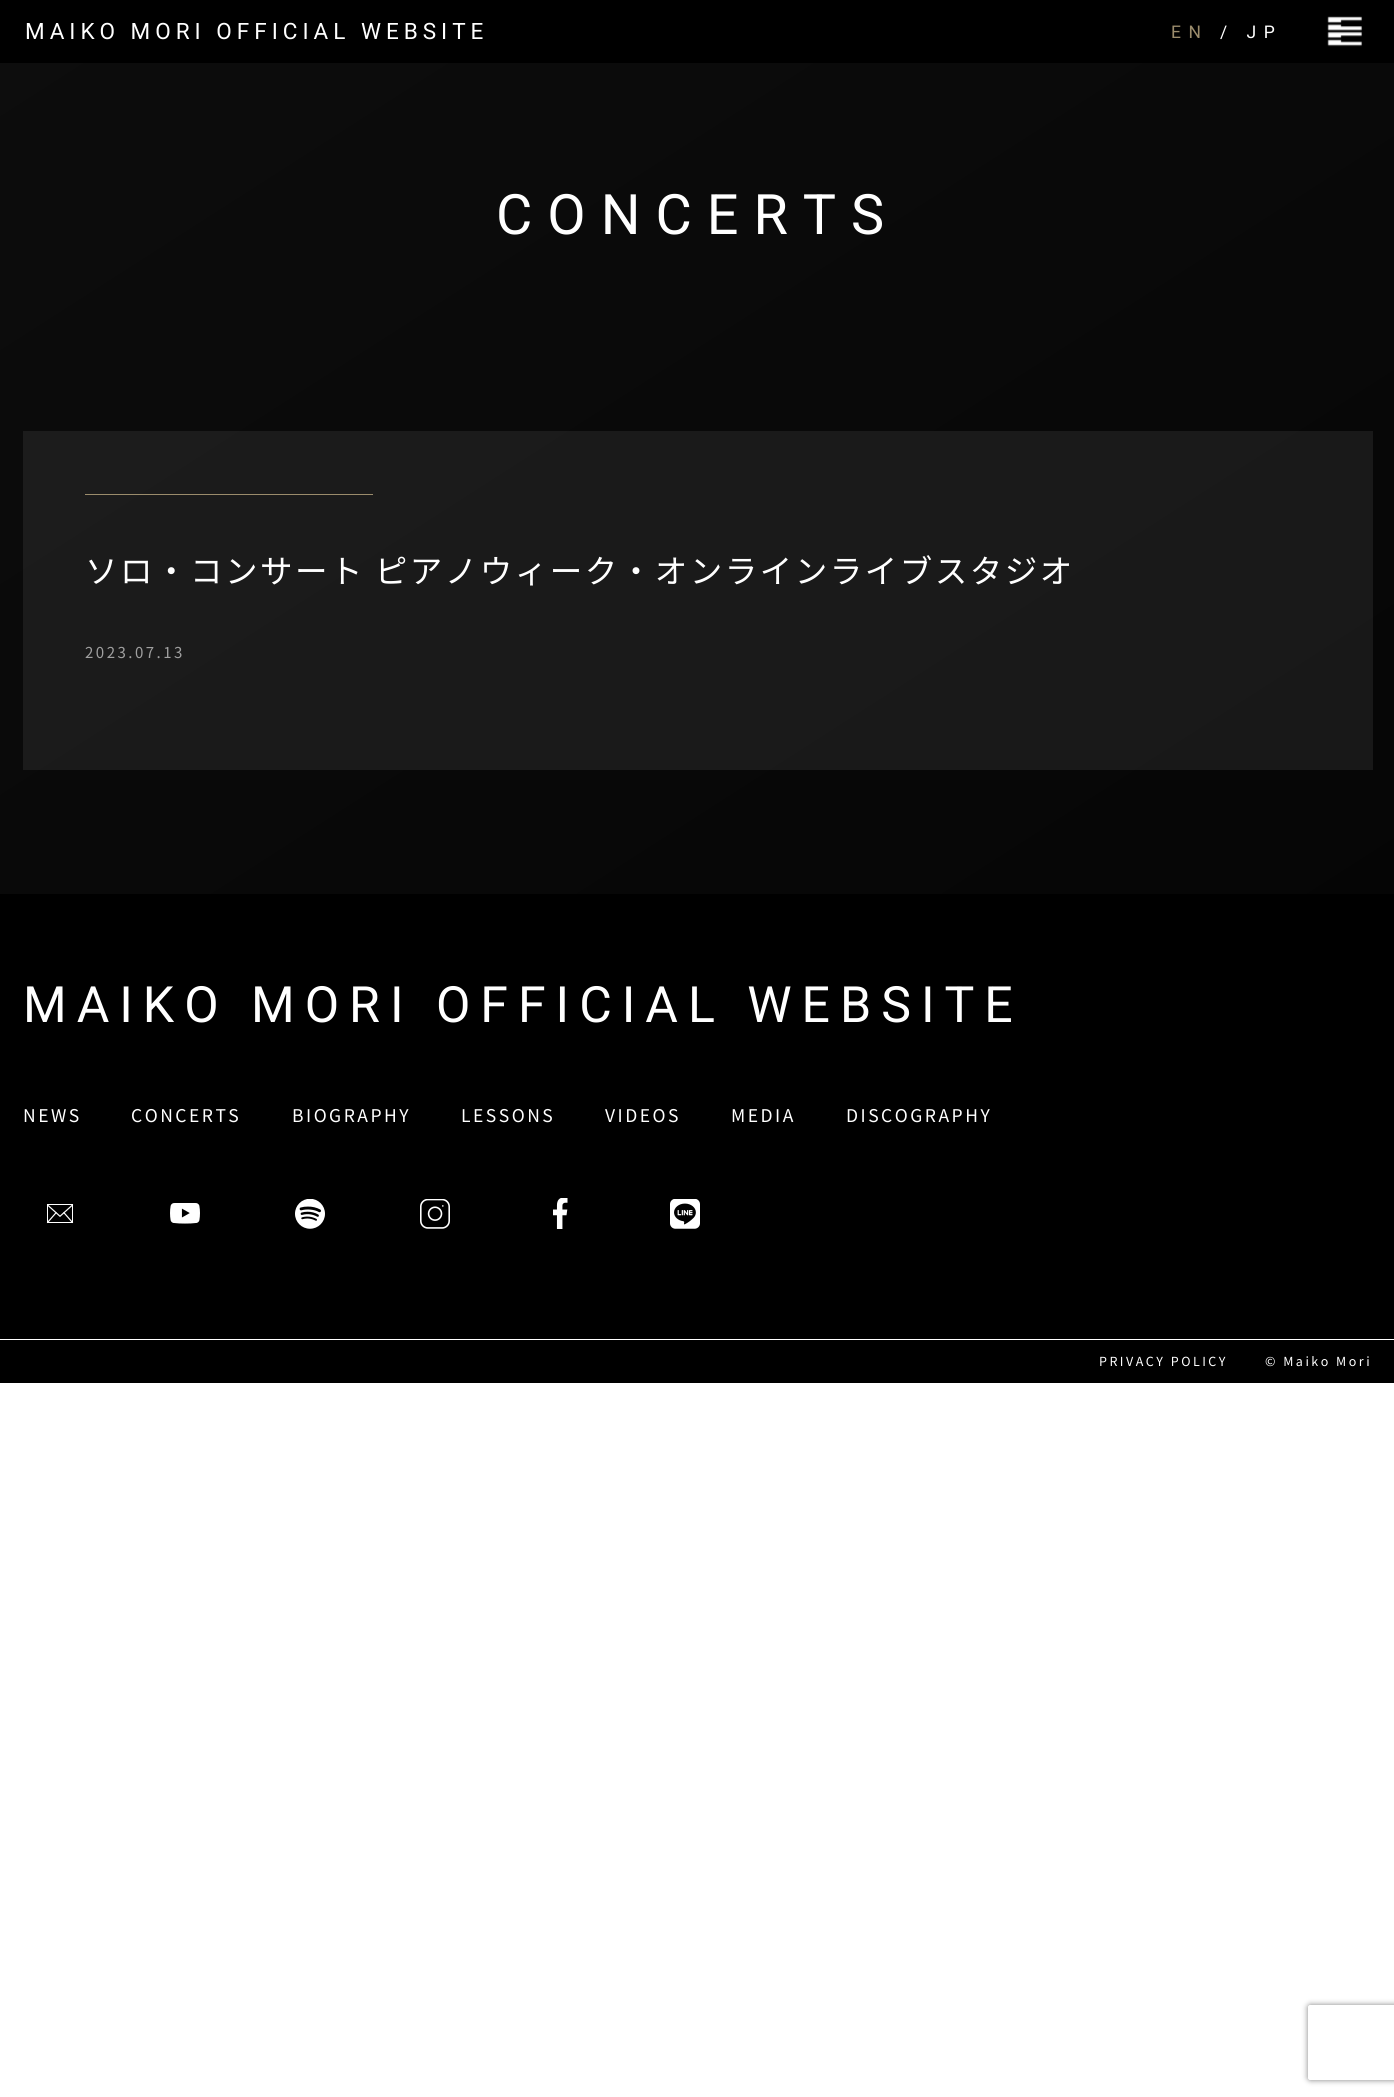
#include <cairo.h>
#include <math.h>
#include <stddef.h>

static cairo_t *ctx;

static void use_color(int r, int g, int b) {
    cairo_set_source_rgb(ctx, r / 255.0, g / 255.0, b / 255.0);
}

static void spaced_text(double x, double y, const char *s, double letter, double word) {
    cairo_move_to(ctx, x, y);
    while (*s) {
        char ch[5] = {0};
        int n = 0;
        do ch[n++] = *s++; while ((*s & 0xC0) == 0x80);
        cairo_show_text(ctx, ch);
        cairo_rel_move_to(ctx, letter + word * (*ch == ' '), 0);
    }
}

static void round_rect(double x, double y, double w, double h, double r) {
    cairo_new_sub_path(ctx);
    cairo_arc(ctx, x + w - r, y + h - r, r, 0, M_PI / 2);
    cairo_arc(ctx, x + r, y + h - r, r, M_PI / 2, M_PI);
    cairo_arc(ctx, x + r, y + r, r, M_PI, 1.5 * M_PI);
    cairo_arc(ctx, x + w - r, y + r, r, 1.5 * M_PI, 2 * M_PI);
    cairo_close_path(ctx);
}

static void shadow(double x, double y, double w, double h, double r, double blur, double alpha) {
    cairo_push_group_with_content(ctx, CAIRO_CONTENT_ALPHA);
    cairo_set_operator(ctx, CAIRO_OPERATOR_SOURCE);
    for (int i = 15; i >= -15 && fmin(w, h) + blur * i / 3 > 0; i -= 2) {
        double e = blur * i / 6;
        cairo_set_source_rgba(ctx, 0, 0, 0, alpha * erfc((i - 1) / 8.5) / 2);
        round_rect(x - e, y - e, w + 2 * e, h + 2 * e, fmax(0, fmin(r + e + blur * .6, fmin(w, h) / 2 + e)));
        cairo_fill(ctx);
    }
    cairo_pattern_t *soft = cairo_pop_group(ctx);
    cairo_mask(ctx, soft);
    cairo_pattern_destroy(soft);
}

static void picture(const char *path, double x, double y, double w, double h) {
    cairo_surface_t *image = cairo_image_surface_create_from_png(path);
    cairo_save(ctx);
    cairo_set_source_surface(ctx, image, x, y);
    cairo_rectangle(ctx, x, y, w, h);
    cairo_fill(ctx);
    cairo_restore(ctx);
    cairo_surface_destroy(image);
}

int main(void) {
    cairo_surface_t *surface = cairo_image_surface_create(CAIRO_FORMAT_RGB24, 1394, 2097);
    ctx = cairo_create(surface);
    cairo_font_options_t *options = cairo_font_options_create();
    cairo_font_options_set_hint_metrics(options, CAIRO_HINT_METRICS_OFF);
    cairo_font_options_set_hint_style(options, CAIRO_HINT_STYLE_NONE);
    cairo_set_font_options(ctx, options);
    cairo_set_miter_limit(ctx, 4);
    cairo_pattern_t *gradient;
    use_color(255, 255, 255);
    cairo_paint(ctx);
    use_color(0, 0, 0);
    cairo_rectangle(ctx, 0, 0, 1394, 63);
    cairo_fill(ctx);
    cairo_select_font_face(ctx, "Roboto", CAIRO_FONT_SLANT_NORMAL, CAIRO_FONT_WEIGHT_NORMAL);
    cairo_set_font_size(ctx, 22.5);
    use_color(255, 255, 255);
    spaced_text(25, 39, "MAIKO MORI OFFICIAL WEBSITE", 5, 0);
    cairo_set_font_size(ctx, 17.5);
    use_color(155, 140, 108);
    spaced_text(1171, 38, "EN", 7.5, 0);
    use_color(255, 255, 255);
    spaced_text(1220, 38, "/ JP", 7.5, 0);
    picture("img1.png", 1327, 16, 36, 31);
    use_color(26, 26, 26);
    cairo_rectangle(ctx, 0, 63, 1394, 831);
    cairo_fill(ctx);
    gradient = cairo_pattern_create_linear(291, -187, 1104, 1082);
    cairo_pattern_add_color_stop_rgba(gradient, 0, 0, 0, 0, 0.5);
    cairo_pattern_add_color_stop_rgba(gradient, 1, 0, 0, 0, 0.8);
    cairo_set_source(ctx, gradient);
    cairo_pattern_destroy(gradient);
    cairo_rectangle(ctx, 0, 63, 1394, 831);
    cairo_fill(ctx);
    cairo_set_font_size(ctx, 55.75);
    use_color(255, 255, 255);
    spaced_text(496, 234, "CONCERTS", 15, 0);
    cairo_set_source_rgba(ctx, 0.271, 0.271, 0.271, 0.3);
    cairo_rectangle(ctx, 23, 431, 1350, 339);
    cairo_fill(ctx);
    use_color(155, 140, 108);
    cairo_rectangle(ctx, 85, 494, 288, 1);
    cairo_fill(ctx);
    cairo_select_font_face(ctx, "Noto Sans JP", CAIRO_FONT_SLANT_NORMAL, CAIRO_FONT_WEIGHT_NORMAL);
    cairo_set_font_size(ctx, 32.5);
    use_color(255, 255, 255);
    spaced_text(85, 583, "ソロ・コンサート ピアノウィーク・オンラインライブスタジオ", 2.5, 0);
    cairo_set_font_size(ctx, 15);
    use_color(160, 160, 160);
    spaced_text(85, 658, "2023.07.13", 2.5, 0);
    use_color(0, 0, 0);
    cairo_rectangle(ctx, 0, 894, 1394, 489);
    cairo_fill(ctx);
    cairo_select_font_face(ctx, "Roboto", CAIRO_FONT_SLANT_NORMAL, CAIRO_FONT_WEIGHT_NORMAL);
    cairo_set_font_size(ctx, 50);
    use_color(255, 255, 255);
    spaced_text(23, 1022, "MAIKO MORI OFFICIAL WEBSITE", 10, 0);
    cairo_select_font_face(ctx, "Noto Sans JP", CAIRO_FONT_SLANT_NORMAL, CAIRO_FONT_WEIGHT_NORMAL);
    cairo_set_font_size(ctx, 17.5);
    spaced_text(23, 1122, "NEWS", 2.5, 0);
    spaced_text(131, 1122, "CONCERTS", 2.5, 0);
    spaced_text(292, 1122, "BIOGRAPHY", 2.5, 0);
    spaced_text(461, 1122, "LESSONS", 2.5, 0);
    spaced_text(605, 1122, "VIDEOS", 2.5, 0);
    spaced_text(731, 1122, "MEDIA", 2.5, 0);
    spaced_text(846, 1122, "DISCOGRAPHY", 2.5, 0);
    picture("img2.png", 46, 1204, 28, 20);
    picture("img3.png", 170, 1203, 30, 21);
    picture("img4.png", 295, 1199, 30, 30);
    picture("img5.png", 420, 1199, 30, 30);
    picture("img6.png", 553, 1198, 15, 31);
    picture("img7.png", 670, 1199, 30, 30);
    cairo_rectangle(ctx, 0, 1339, 1394, 1);
    cairo_fill(ctx);
    cairo_set_font_size(ctx, 12.5);
    spaced_text(1099, 1366, "PRIVACY POLICY", 2.5, 0);
    spaced_text(1265, 1366, "© Maiko Mori", 2.5, 0);
    cairo_save(ctx);
    cairo_set_fill_rule(ctx, CAIRO_FILL_RULE_EVEN_ODD);
    cairo_new_path(ctx);
    cairo_move_to(ctx, 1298, 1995);
    cairo_line_to(ctx, 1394, 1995);
    cairo_line_to(ctx, 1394, 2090);
    cairo_line_to(ctx, 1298, 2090);
    cairo_close_path(ctx);
    cairo_move_to(ctx, 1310.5, 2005);
    cairo_line_to(ctx, 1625.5, 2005);
    cairo_curve_to(ctx, 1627, 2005, 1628, 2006, 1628, 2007.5);
    cairo_line_to(ctx, 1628, 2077.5);
    cairo_curve_to(ctx, 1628, 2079, 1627, 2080, 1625.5, 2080);
    cairo_line_to(ctx, 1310.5, 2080);
    cairo_curve_to(ctx, 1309, 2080, 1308, 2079, 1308, 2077.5);
    cairo_line_to(ctx, 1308, 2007.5);
    cairo_curve_to(ctx, 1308, 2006, 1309, 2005, 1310.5, 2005);
    cairo_close_path(ctx);
    cairo_clip(ctx);
    use_color(128, 128, 128);
    shadow(1308, 2005, 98, 75, 2.5, 3, 1);
    cairo_restore(ctx);
    cairo_surface_write_to_png(surface, "result.png");
    cairo_font_options_destroy(options);
    cairo_destroy(ctx);
    cairo_surface_destroy(surface);
    return 0;
}
